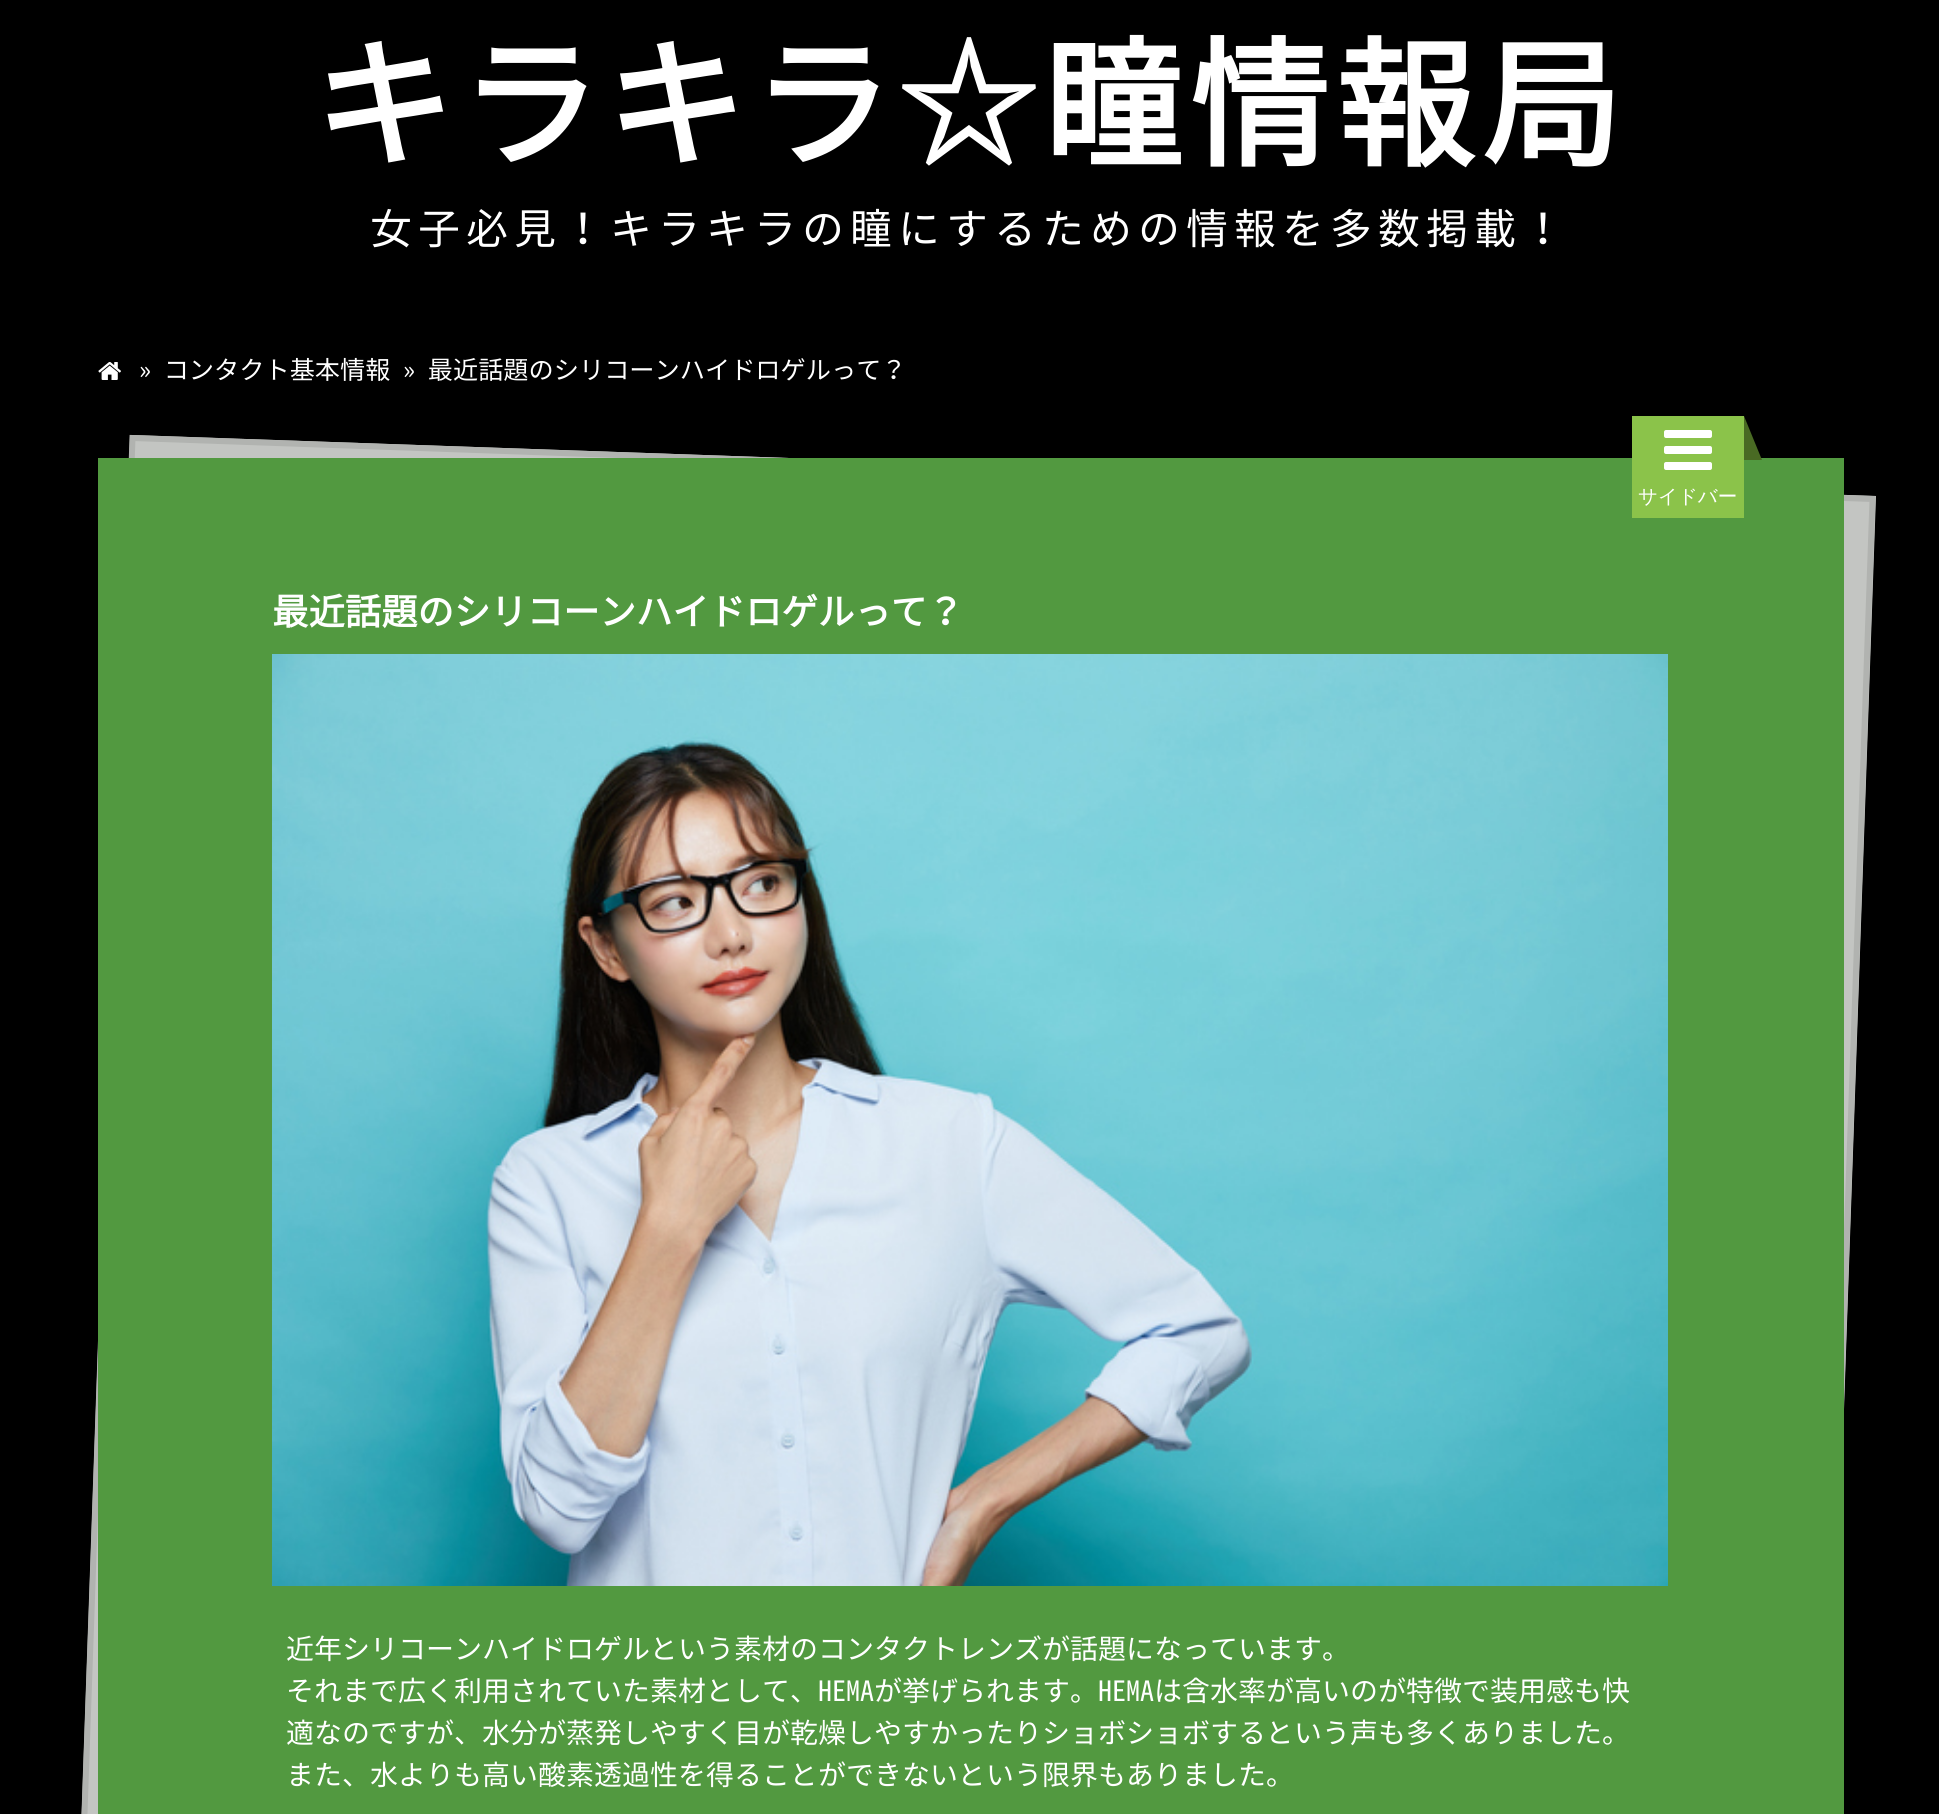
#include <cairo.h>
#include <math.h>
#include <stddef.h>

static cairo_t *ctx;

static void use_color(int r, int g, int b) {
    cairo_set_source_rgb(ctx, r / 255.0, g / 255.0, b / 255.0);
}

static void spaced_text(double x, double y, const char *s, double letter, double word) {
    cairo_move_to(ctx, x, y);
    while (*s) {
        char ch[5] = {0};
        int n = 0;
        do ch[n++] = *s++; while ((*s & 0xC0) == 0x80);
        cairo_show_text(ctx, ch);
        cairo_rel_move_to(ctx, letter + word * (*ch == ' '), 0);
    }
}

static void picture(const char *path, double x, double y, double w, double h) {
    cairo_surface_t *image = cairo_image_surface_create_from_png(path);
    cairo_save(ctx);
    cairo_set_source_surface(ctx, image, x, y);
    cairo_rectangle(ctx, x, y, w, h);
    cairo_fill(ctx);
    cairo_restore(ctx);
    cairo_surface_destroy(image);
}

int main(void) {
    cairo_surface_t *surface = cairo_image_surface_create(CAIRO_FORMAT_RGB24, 1939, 1814);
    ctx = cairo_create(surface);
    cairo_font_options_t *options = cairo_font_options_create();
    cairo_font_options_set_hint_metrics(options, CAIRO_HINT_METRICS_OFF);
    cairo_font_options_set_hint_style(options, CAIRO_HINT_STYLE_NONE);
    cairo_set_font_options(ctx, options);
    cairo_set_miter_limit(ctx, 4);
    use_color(0, 0, 0);
    cairo_paint(ctx);
    cairo_select_font_face(ctx, "Noto Sans Mono CJK JP", CAIRO_FONT_SLANT_NORMAL, CAIRO_FONT_WEIGHT_BOLD);
    cairo_set_font_size(ctx, 140);
    use_color(255, 255, 255);
    spaced_text(313, 156, "キラキラ☆瞳情報局", 6, 0);
    cairo_select_font_face(ctx, "Noto Sans Mono CJK JP", CAIRO_FONT_SLANT_NORMAL, CAIRO_FONT_WEIGHT_NORMAL);
    cairo_set_font_size(ctx, 42);
    spaced_text(370, 244, "女子必見！キラキラの瞳にするための情報を多数掲載！", 6, 0);
    picture("img1.png", 98, 362, 23, 18);
    cairo_set_font_size(ctx, 25.2);
    cairo_move_to(ctx, 139, 379);
    cairo_show_text(ctx, "» コンタクト基本情報 » 最近話題のシリコーンハイドロゲルって？");
    use_color(195, 197, 194);
    cairo_new_path(ctx);
    cairo_move_to(ctx, 130, 435);
    cairo_line_to(ctx, 1876, 496);
    cairo_line_to(ctx, 1805, 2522);
    cairo_line_to(ctx, 59, 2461);
    cairo_close_path(ctx);
    cairo_fill(ctx);
    cairo_new_path(ctx);
    cairo_move_to(ctx, 132.5, 438);
    cairo_line_to(ctx, 1872.5, 499);
    cairo_line_to(ctx, 1802, 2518.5);
    cairo_line_to(ctx, 62, 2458);
    cairo_close_path(ctx);
    use_color(177, 179, 176);
    cairo_set_line_width(ctx, 6);
    cairo_stroke(ctx);
    use_color(82, 153, 64);
    cairo_rectangle(ctx, 98, 458, 1746, 1356);
    cairo_fill(ctx);
    use_color(139, 195, 74);
    cairo_rectangle(ctx, 1632, 416, 112, 102);
    cairo_fill(ctx);
    use_color(73, 106, 35);
    cairo_new_path(ctx);
    cairo_move_to(ctx, 1744, 460);
    cairo_line_to(ctx, 1744, 416);
    cairo_line_to(ctx, 1762, 460);
    cairo_close_path(ctx);
    cairo_fill(ctx);
    picture("img2.png", 1664, 430, 48, 40);
    cairo_select_font_face(ctx, "WenQuanYi Zen Hei Medium", CAIRO_FONT_SLANT_NORMAL, CAIRO_FONT_WEIGHT_NORMAL);
    cairo_set_font_size(ctx, 19.5);
    use_color(255, 255, 255);
    cairo_move_to(ctx, 1638, 503);
    cairo_show_text(ctx, "サイドバー");
    cairo_select_font_face(ctx, "Noto Sans Mono CJK JP", CAIRO_FONT_SLANT_NORMAL, CAIRO_FONT_WEIGHT_BOLD);
    cairo_set_font_size(ctx, 36.4);
    cairo_move_to(ctx, 272, 625);
    cairo_show_text(ctx, "最近話題のシリコーンハイドロゲルって？");
    picture("img3.png", 272, 654, 1396, 932);
    cairo_select_font_face(ctx, "Noto Sans Mono CJK JP", CAIRO_FONT_SLANT_NORMAL, CAIRO_FONT_WEIGHT_NORMAL);
    cairo_set_font_size(ctx, 28);
    cairo_move_to(ctx, 286, 1659);
    cairo_show_text(ctx, "近年シリコーンハイドロゲルという素材のコンタクトレンズが話題になっています。");
    cairo_move_to(ctx, 286, 1701);
    cairo_show_text(ctx, "それまで広く利用されていた素材として、HEMAが挙げられます。HEMAは含水率が高いのが特徴で装用感も快");
    cairo_move_to(ctx, 286, 1743);
    cairo_show_text(ctx, "適なのですが、水分が蒸発しやすく目が乾燥しやすかったりショボショボするという声も多くありました。");
    cairo_move_to(ctx, 286, 1785);
    cairo_show_text(ctx, "また、水よりも高い酸素透過性を得ることができないという限界もありました。");
    cairo_surface_write_to_png(surface, "result.png");
    cairo_font_options_destroy(options);
    cairo_destroy(ctx);
    cairo_surface_destroy(surface);
    return 0;
}
